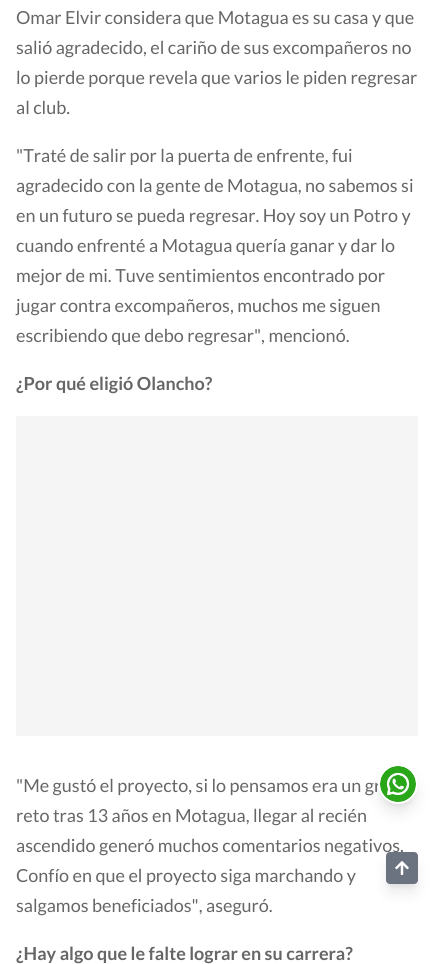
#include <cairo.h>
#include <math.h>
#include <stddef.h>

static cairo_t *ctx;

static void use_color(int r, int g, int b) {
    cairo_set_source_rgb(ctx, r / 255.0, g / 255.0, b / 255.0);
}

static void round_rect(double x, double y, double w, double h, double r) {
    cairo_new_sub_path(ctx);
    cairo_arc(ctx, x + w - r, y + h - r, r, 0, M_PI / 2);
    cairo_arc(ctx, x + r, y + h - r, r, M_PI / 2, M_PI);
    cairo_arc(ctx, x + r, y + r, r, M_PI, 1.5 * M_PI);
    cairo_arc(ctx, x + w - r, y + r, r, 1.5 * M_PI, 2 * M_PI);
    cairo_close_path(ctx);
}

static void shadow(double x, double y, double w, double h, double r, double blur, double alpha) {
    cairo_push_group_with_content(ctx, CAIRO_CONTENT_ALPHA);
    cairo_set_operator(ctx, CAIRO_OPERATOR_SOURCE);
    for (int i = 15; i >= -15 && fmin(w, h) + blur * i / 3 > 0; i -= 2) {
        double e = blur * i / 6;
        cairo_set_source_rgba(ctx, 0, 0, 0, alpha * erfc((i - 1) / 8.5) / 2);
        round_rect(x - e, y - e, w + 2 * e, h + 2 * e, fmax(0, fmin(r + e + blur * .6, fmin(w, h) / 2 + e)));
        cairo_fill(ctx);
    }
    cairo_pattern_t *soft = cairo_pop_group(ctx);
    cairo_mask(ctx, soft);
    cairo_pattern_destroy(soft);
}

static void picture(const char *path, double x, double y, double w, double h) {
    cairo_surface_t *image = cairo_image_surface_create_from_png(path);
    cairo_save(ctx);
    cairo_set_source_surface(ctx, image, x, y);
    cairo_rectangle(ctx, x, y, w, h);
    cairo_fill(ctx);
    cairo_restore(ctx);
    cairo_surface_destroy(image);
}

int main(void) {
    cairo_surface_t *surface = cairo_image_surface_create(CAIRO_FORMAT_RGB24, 434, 964);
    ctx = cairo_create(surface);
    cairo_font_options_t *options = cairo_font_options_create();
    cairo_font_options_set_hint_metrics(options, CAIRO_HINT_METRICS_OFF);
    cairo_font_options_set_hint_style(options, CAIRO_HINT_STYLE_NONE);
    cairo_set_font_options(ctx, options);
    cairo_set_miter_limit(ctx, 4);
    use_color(255, 255, 255);
    cairo_paint(ctx);
    cairo_select_font_face(ctx, "Lato", CAIRO_FONT_SLANT_NORMAL, CAIRO_FONT_WEIGHT_NORMAL);
    cairo_set_font_size(ctx, 18);
    use_color(102, 102, 102);
    cairo_move_to(ctx, 16, 24);
    cairo_show_text(ctx, "Omar Elvir considera que Motagua es su casa y que");
    cairo_move_to(ctx, 16, 54);
    cairo_show_text(ctx, "salió agradecido, el cariño de sus excompañeros no");
    cairo_move_to(ctx, 16, 84);
    cairo_show_text(ctx, "lo pierde porque revela que varios le piden regresar");
    cairo_move_to(ctx, 16, 114);
    cairo_show_text(ctx, "al club.");
    cairo_move_to(ctx, 16, 162);
    cairo_show_text(ctx, "\"Traté de salir por la puerta de enfrente, fui");
    cairo_move_to(ctx, 16, 192);
    cairo_show_text(ctx, "agradecido con la gente de Motagua, no sabemos si");
    cairo_move_to(ctx, 16, 222);
    cairo_show_text(ctx, "en un futuro se pueda regresar. Hoy soy un Potro y");
    cairo_move_to(ctx, 16, 252);
    cairo_show_text(ctx, "cuando enfrenté a Motagua quería ganar y dar lo");
    cairo_move_to(ctx, 16, 282);
    cairo_show_text(ctx, "mejor de mi. Tuve sentimientos encontrado por");
    cairo_move_to(ctx, 16, 312);
    cairo_show_text(ctx, "jugar contra excompañeros, muchos me siguen");
    cairo_move_to(ctx, 16, 342);
    cairo_show_text(ctx, "escribiendo que debo regresar\", mencionó.");
    cairo_select_font_face(ctx, "Lato", CAIRO_FONT_SLANT_NORMAL, CAIRO_FONT_WEIGHT_BOLD);
    cairo_move_to(ctx, 16, 390);
    cairo_show_text(ctx, "¿Por qué eligió Olancho?");
    use_color(245, 245, 245);
    cairo_rectangle(ctx, 16, 416, 402, 320);
    cairo_fill(ctx);
    cairo_select_font_face(ctx, "Lato", CAIRO_FONT_SLANT_NORMAL, CAIRO_FONT_WEIGHT_NORMAL);
    use_color(102, 102, 102);
    cairo_move_to(ctx, 16, 792);
    cairo_show_text(ctx, "\"Me gustó el proyecto, si lo pensamos era un gr");
    cairo_move_to(ctx, 16, 822);
    cairo_show_text(ctx, "reto tras 13 años en Motagua, llegar al recién");
    cairo_move_to(ctx, 16, 852);
    cairo_show_text(ctx, "ascendido generó muchos comentarios negativos.");
    cairo_move_to(ctx, 16, 882);
    cairo_show_text(ctx, "Confío en que el proyecto siga marchando y");
    cairo_move_to(ctx, 16, 912);
    cairo_show_text(ctx, "salgamos beneficiados\", aseguró.");
    cairo_select_font_face(ctx, "Lato", CAIRO_FONT_SLANT_NORMAL, CAIRO_FONT_WEIGHT_BOLD);
    cairo_move_to(ctx, 16, 960);
    cairo_show_text(ctx, "¿Hay algo que le falte lograr en su carrera?");
    use_color(0, 0, 0);
    shadow(382, 772, 32, 32, 16, 3, 0.1);
    shadow(381, 777, 34, 34, 17, 7.5, 0.1);
    cairo_arc(ctx, 398, 784, 19, 0, 2 * M_PI);
    use_color(255, 255, 255);
    cairo_stroke(ctx);
    picture("img1.png", 380, 766, 36, 36);
    use_color(0, 0, 0);
    shadow(390, 860, 24, 24, 0, 3, 0.1);
    shadow(389, 865, 26, 26, 1, 7.5, 0.1);
    use_color(107, 114, 128);
    round_rect(386, 852, 32, 32, 4);
    cairo_fill(ctx);
    picture("img2.png", 395, 861, 14, 14);
    cairo_surface_write_to_png(surface, "result.png");
    cairo_font_options_destroy(options);
    cairo_destroy(ctx);
    cairo_surface_destroy(surface);
    return 0;
}
